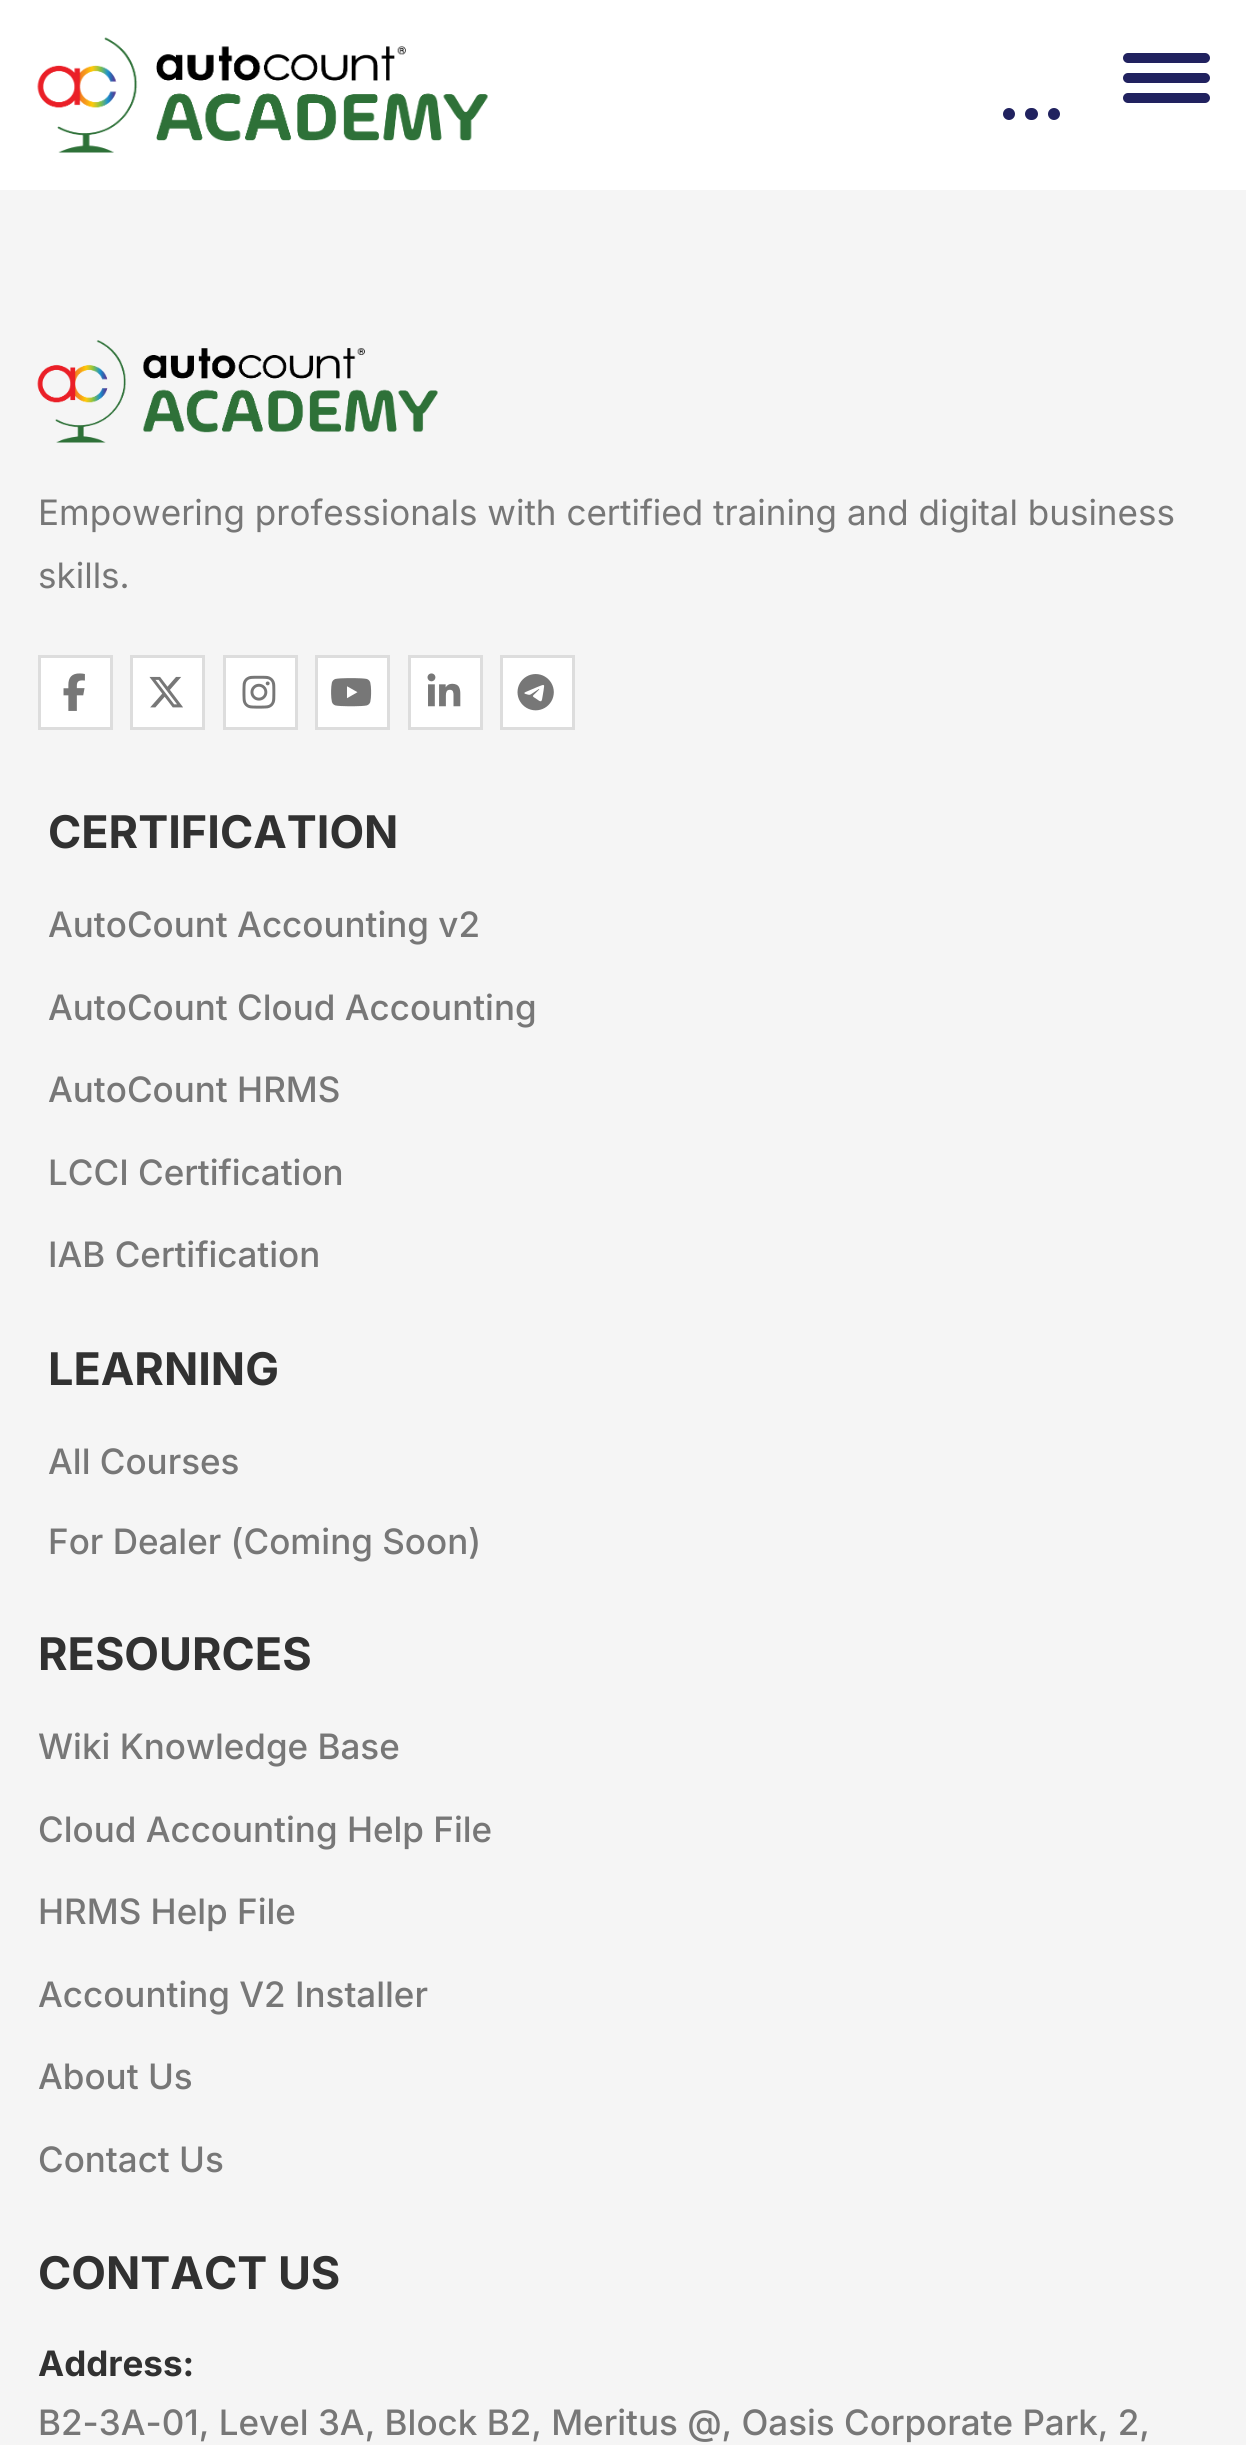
#include <cairo.h>
#include <math.h>
#include <stddef.h>

static cairo_t *ctx;

static void use_color(int r, int g, int b) {
    cairo_set_source_rgb(ctx, r / 255.0, g / 255.0, b / 255.0);
}

static void round_rect(double x, double y, double w, double h, double r) {
    cairo_new_sub_path(ctx);
    cairo_arc(ctx, x + w - r, y + h - r, r, 0, M_PI / 2);
    cairo_arc(ctx, x + r, y + h - r, r, M_PI / 2, M_PI);
    cairo_arc(ctx, x + r, y + r, r, M_PI, 1.5 * M_PI);
    cairo_arc(ctx, x + w - r, y + r, r, 1.5 * M_PI, 2 * M_PI);
    cairo_close_path(ctx);
}

static void picture(const char *path, double x, double y, double w, double h) {
    cairo_surface_t *image = cairo_image_surface_create_from_png(path);
    cairo_save(ctx);
    cairo_set_source_surface(ctx, image, x, y);
    cairo_rectangle(ctx, x, y, w, h);
    cairo_fill(ctx);
    cairo_restore(ctx);
    cairo_surface_destroy(image);
}

int main(void) {
    cairo_surface_t *surface = cairo_image_surface_create(CAIRO_FORMAT_RGB24, 1246, 2445);
    ctx = cairo_create(surface);
    cairo_font_options_t *options = cairo_font_options_create();
    cairo_font_options_set_hint_metrics(options, CAIRO_HINT_METRICS_OFF);
    cairo_font_options_set_hint_style(options, CAIRO_HINT_STYLE_NONE);
    cairo_set_font_options(ctx, options);
    cairo_set_miter_limit(ctx, 4);
    use_color(255, 255, 255);
    cairo_paint(ctx);
    picture("img1.png", 37, 37, 451, 116);
    use_color(33, 34, 95);
    round_rect(1123, 53, 87, 10, 5);
    cairo_fill(ctx);
    round_rect(1123, 73, 87, 10, 5);
    cairo_fill(ctx);
    round_rect(1123, 93, 87, 10, 5);
    cairo_fill(ctx);
    cairo_arc(ctx, 1009, 114, 6, 0, 2 * M_PI);
    cairo_fill(ctx);
    round_rect(1025, 108, 13, 12, 6);
    cairo_fill(ctx);
    cairo_arc(ctx, 1054, 114, 6, 0, 2 * M_PI);
    cairo_fill(ctx);
    use_color(245, 245, 245);
    cairo_rectangle(ctx, 0, 190, 1246, 2255);
    cairo_fill(ctx);
    picture("img2.png", 37, 340, 401, 103);
    cairo_select_font_face(ctx, "Inter", CAIRO_FONT_SLANT_NORMAL, CAIRO_FONT_WEIGHT_NORMAL);
    cairo_set_font_size(ctx, 35);
    use_color(119, 119, 119);
    cairo_move_to(ctx, 38, 525);
    cairo_show_text(ctx, "Empowering professionals with certified training and digital business");
    cairo_move_to(ctx, 38, 588);
    cairo_show_text(ctx, "skills.");
    use_color(255, 255, 255);
    cairo_rectangle(ctx, 39.5, 656.5, 72, 72);
    cairo_fill_preserve(ctx);
    use_color(221, 221, 221);
    cairo_set_line_width(ctx, 3);
    cairo_stroke(ctx);
    picture("img3.png", 63, 673, 22, 38);
    use_color(255, 255, 255);
    cairo_rectangle(ctx, 131.5, 656.5, 72, 72);
    cairo_fill_preserve(ctx);
    use_color(221, 221, 221);
    cairo_stroke(ctx);
    picture("img4.png", 149, 676, 34, 32);
    use_color(255, 255, 255);
    cairo_rectangle(ctx, 224.5, 656.5, 72, 72);
    cairo_fill_preserve(ctx);
    use_color(221, 221, 221);
    cairo_stroke(ctx);
    picture("img5.png", 242, 675, 34, 34);
    use_color(255, 255, 255);
    cairo_rectangle(ctx, 316.5, 656.5, 72, 72);
    cairo_fill_preserve(ctx);
    use_color(221, 221, 221);
    cairo_stroke(ctx);
    picture("img6.png", 331, 678, 41, 29);
    use_color(255, 255, 255);
    cairo_rectangle(ctx, 409.5, 656.5, 72, 72);
    cairo_fill_preserve(ctx);
    use_color(221, 221, 221);
    cairo_stroke(ctx);
    picture("img7.png", 427, 673, 34, 34);
    use_color(255, 255, 255);
    cairo_rectangle(ctx, 501.5, 656.5, 72, 72);
    cairo_fill_preserve(ctx);
    use_color(221, 221, 221);
    cairo_stroke(ctx);
    picture("img8.png", 517, 674, 37, 37);
    cairo_select_font_face(ctx, "Inter", CAIRO_FONT_SLANT_NORMAL, CAIRO_FONT_WEIGHT_BOLD);
    cairo_set_font_size(ctx, 45);
    use_color(49, 49, 49);
    cairo_move_to(ctx, 48, 848);
    cairo_show_text(ctx, "CERTIFICATION");
    cairo_select_font_face(ctx, "Inter Medium", CAIRO_FONT_SLANT_NORMAL, CAIRO_FONT_WEIGHT_NORMAL);
    cairo_set_font_size(ctx, 35);
    use_color(119, 119, 119);
    cairo_move_to(ctx, 48, 937);
    cairo_show_text(ctx, "AutoCount Accounting v2");
    cairo_move_to(ctx, 48, 1020);
    cairo_show_text(ctx, "AutoCount Cloud Accounting");
    cairo_move_to(ctx, 48, 1102);
    cairo_show_text(ctx, "AutoCount HRMS");
    cairo_move_to(ctx, 48, 1185);
    cairo_show_text(ctx, "LCCI Certification");
    cairo_move_to(ctx, 48, 1267);
    cairo_show_text(ctx, "IAB Certification");
    cairo_select_font_face(ctx, "Inter", CAIRO_FONT_SLANT_NORMAL, CAIRO_FONT_WEIGHT_BOLD);
    cairo_set_font_size(ctx, 45);
    use_color(49, 49, 49);
    cairo_move_to(ctx, 48, 1385);
    cairo_show_text(ctx, "LEARNING");
    cairo_select_font_face(ctx, "Inter Medium", CAIRO_FONT_SLANT_NORMAL, CAIRO_FONT_WEIGHT_NORMAL);
    cairo_set_font_size(ctx, 35);
    use_color(119, 119, 119);
    cairo_move_to(ctx, 48, 1474);
    cairo_show_text(ctx, "All Courses");
    cairo_move_to(ctx, 48, 1554);
    cairo_show_text(ctx, "For Dealer (Coming Soon)");
    cairo_select_font_face(ctx, "Inter", CAIRO_FONT_SLANT_NORMAL, CAIRO_FONT_WEIGHT_BOLD);
    cairo_set_font_size(ctx, 45);
    use_color(49, 49, 49);
    cairo_move_to(ctx, 38, 1670);
    cairo_show_text(ctx, "RESOURCES");
    cairo_select_font_face(ctx, "Inter Medium", CAIRO_FONT_SLANT_NORMAL, CAIRO_FONT_WEIGHT_NORMAL);
    cairo_set_font_size(ctx, 35);
    use_color(119, 119, 119);
    cairo_move_to(ctx, 38, 1759);
    cairo_show_text(ctx, "Wiki Knowledge Base");
    cairo_move_to(ctx, 38, 1842);
    cairo_show_text(ctx, "Cloud Accounting Help File");
    cairo_move_to(ctx, 38, 1924);
    cairo_show_text(ctx, "HRMS Help File");
    cairo_move_to(ctx, 38, 2007);
    cairo_show_text(ctx, "Accounting V2 Installer");
    cairo_move_to(ctx, 38, 2089);
    cairo_show_text(ctx, "About Us");
    cairo_move_to(ctx, 38, 2172);
    cairo_show_text(ctx, "Contact Us");
    cairo_select_font_face(ctx, "Inter", CAIRO_FONT_SLANT_NORMAL, CAIRO_FONT_WEIGHT_BOLD);
    cairo_set_font_size(ctx, 45);
    use_color(49, 49, 49);
    cairo_move_to(ctx, 38, 2289);
    cairo_show_text(ctx, "CONTACT US");
    cairo_set_font_size(ctx, 35);
    cairo_move_to(ctx, 38, 2376);
    cairo_show_text(ctx, "Address:");
    cairo_select_font_face(ctx, "Inter Medium", CAIRO_FONT_SLANT_NORMAL, CAIRO_FONT_WEIGHT_NORMAL);
    use_color(119, 119, 119);
    cairo_move_to(ctx, 38, 2435);
    cairo_show_text(ctx, "B2-3A-01, Level 3A, Block B2, Meritus @, Oasis Corporate Park, 2,");
    cairo_surface_write_to_png(surface, "result.png");
    cairo_font_options_destroy(options);
    cairo_destroy(ctx);
    cairo_surface_destroy(surface);
    return 0;
}
